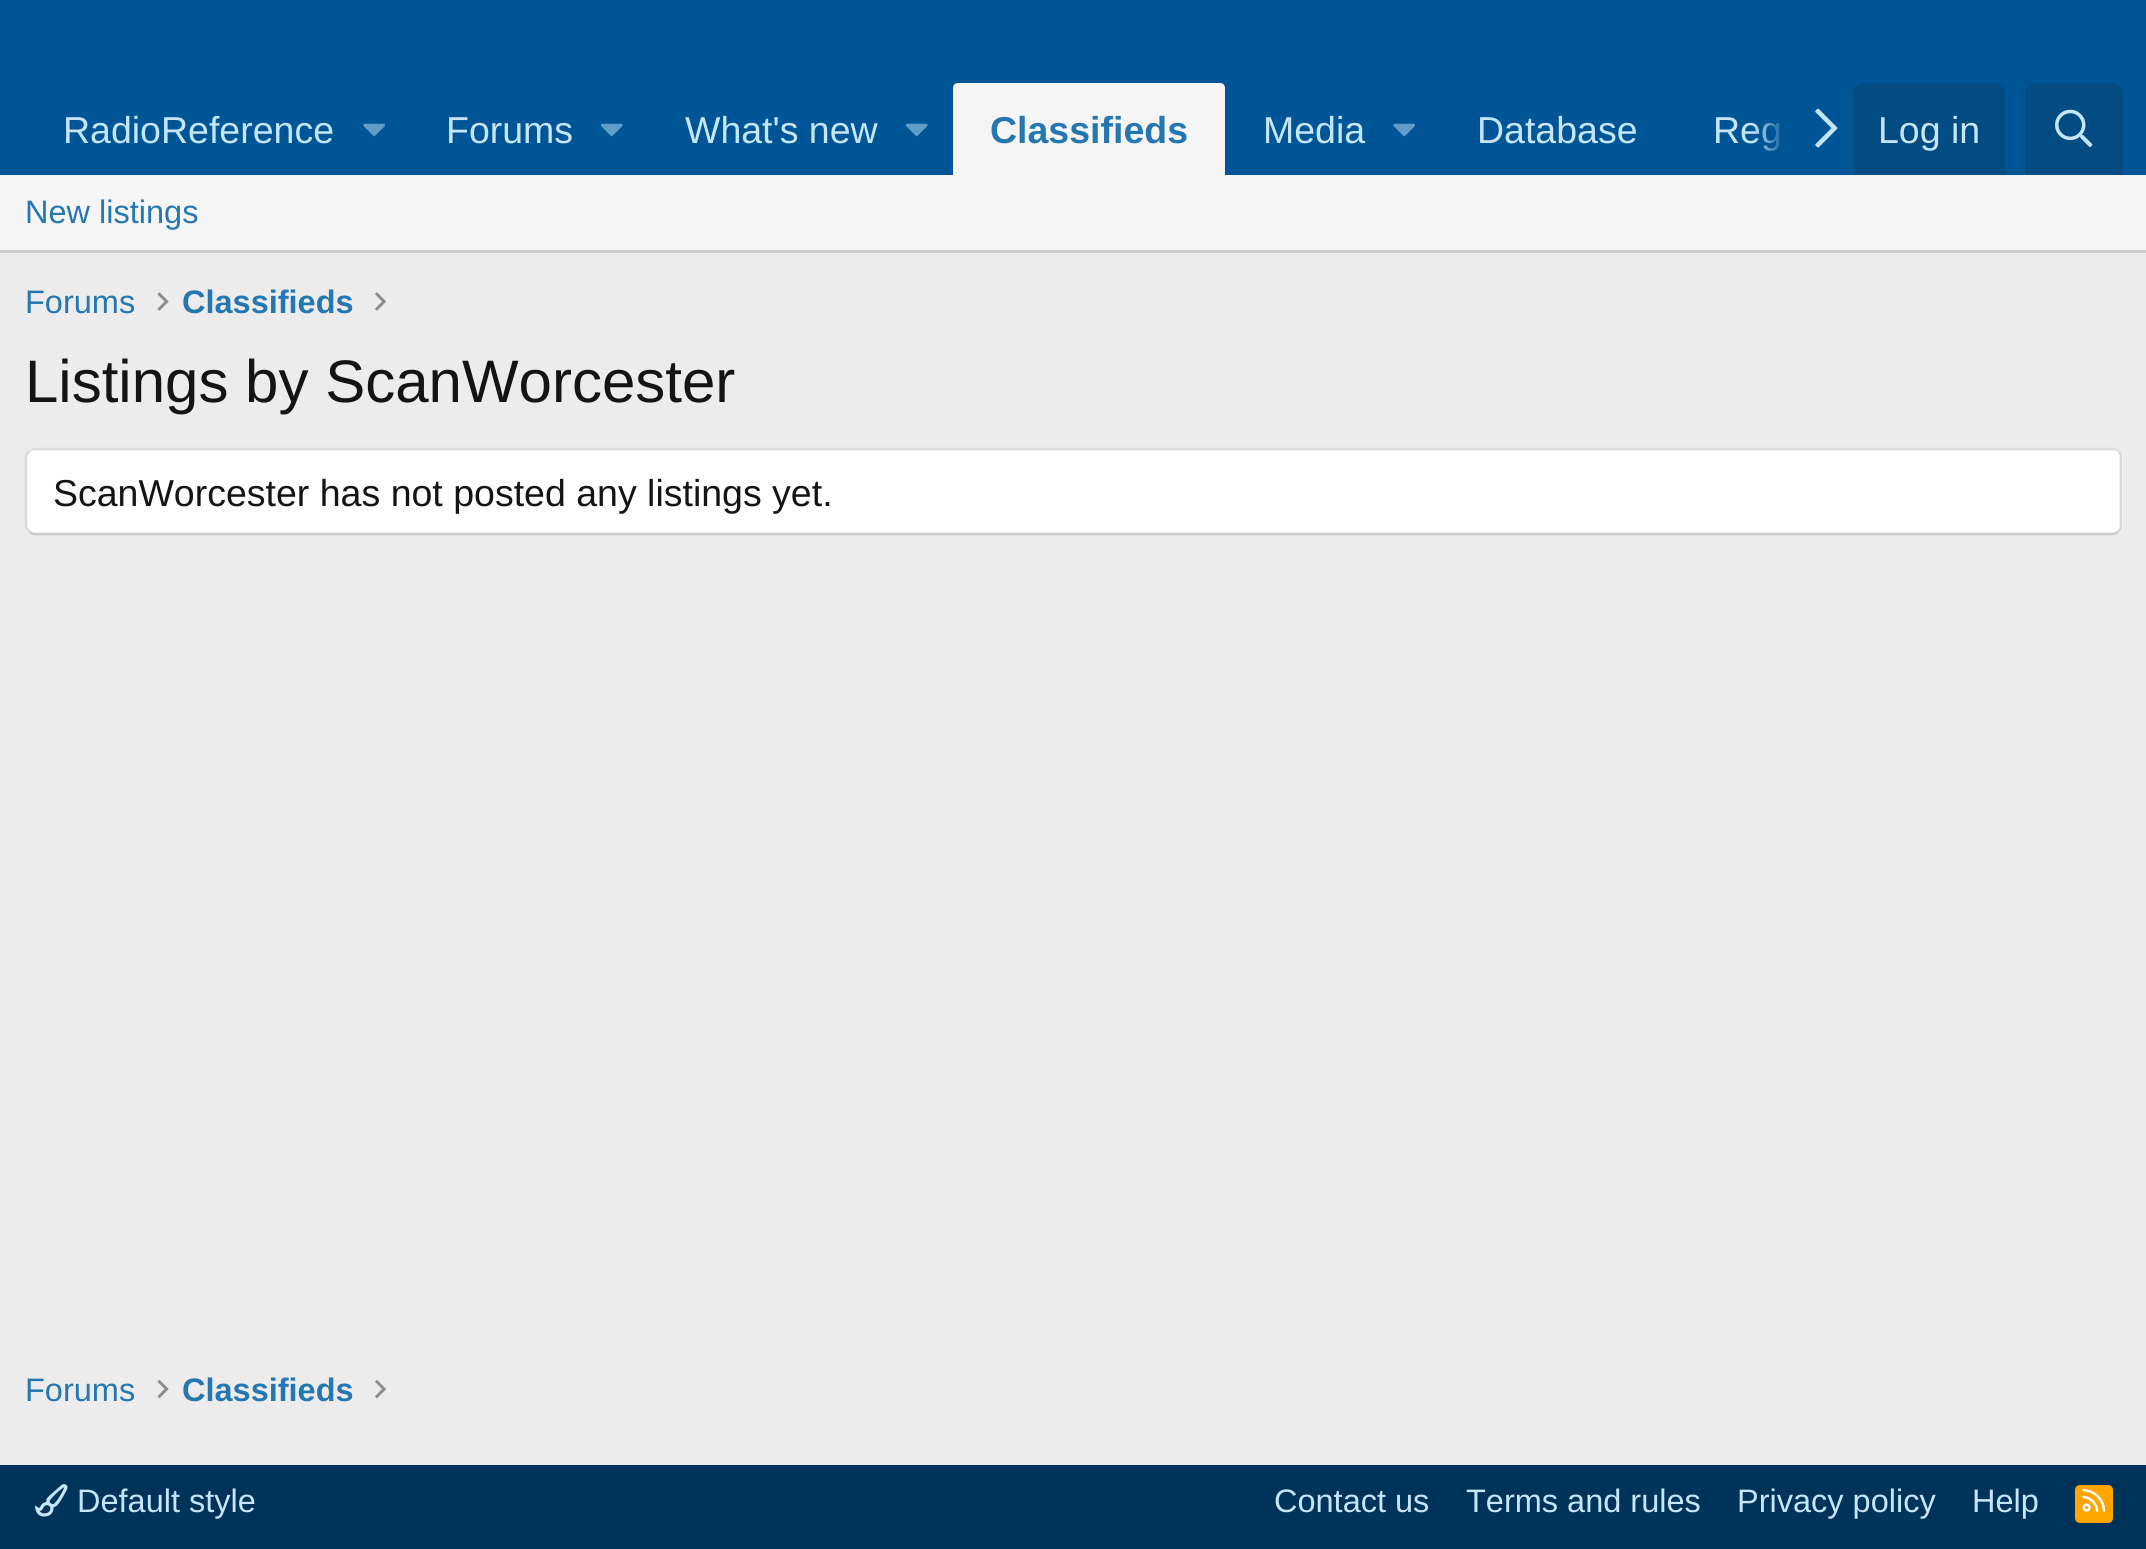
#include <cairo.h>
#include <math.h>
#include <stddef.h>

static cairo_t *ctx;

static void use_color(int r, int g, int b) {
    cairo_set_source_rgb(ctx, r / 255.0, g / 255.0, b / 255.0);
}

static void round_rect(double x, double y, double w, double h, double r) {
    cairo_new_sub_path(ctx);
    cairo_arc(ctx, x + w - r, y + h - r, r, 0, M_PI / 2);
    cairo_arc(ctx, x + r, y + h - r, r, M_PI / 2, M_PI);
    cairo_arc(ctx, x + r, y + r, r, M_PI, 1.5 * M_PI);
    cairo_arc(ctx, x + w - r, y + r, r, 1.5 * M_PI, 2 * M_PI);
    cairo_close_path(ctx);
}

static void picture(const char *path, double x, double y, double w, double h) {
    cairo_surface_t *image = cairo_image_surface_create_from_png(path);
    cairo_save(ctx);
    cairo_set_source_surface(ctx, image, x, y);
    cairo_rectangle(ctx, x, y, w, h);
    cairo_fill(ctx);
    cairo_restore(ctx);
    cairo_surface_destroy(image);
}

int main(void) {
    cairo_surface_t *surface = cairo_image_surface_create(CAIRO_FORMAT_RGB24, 2146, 1549);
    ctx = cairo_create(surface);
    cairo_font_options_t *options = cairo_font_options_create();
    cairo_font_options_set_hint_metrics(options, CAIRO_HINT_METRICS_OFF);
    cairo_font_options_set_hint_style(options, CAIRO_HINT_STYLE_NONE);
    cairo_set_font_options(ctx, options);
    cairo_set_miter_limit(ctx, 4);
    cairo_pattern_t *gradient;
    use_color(236, 236, 236);
    cairo_paint(ctx);
    use_color(0, 85, 151);
    cairo_rectangle(ctx, 0, 0, 2146, 175);
    cairo_fill(ctx);
    cairo_select_font_face(ctx, "Liberation Sans", CAIRO_FONT_SLANT_NORMAL, CAIRO_FONT_WEIGHT_NORMAL);
    cairo_set_font_size(ctx, 37.5);
    use_color(197, 229, 248);
    cairo_move_to(ctx, 63, 143);
    cairo_show_text(ctx, "RadioReference");
    picture("img1.png", 363, 123, 22, 14);
    cairo_move_to(ctx, 446, 143);
    cairo_show_text(ctx, "Forums");
    picture("img2.png", 600, 123, 23, 14);
    cairo_move_to(ctx, 685, 143);
    cairo_show_text(ctx, "What's new");
    picture("img2.png", 905, 123, 23, 14);
    use_color(245, 245, 245);
    cairo_new_path(ctx);
    cairo_move_to(ctx, 958, 83);
    cairo_line_to(ctx, 1220, 83);
    cairo_curve_to(ctx, 1223, 83, 1225, 85, 1225, 88);
    cairo_line_to(ctx, 1225, 175);
    cairo_line_to(ctx, 953, 175);
    cairo_line_to(ctx, 953, 88);
    cairo_curve_to(ctx, 953, 85, 955, 83, 958, 83);
    cairo_close_path(ctx);
    cairo_fill(ctx);
    cairo_select_font_face(ctx, "Liberation Sans", CAIRO_FONT_SLANT_NORMAL, CAIRO_FONT_WEIGHT_BOLD);
    use_color(37, 119, 177);
    cairo_move_to(ctx, 990, 143);
    cairo_show_text(ctx, "Classifieds");
    cairo_select_font_face(ctx, "Liberation Sans", CAIRO_FONT_SLANT_NORMAL, CAIRO_FONT_WEIGHT_NORMAL);
    use_color(197, 229, 248);
    cairo_move_to(ctx, 1263, 143);
    cairo_show_text(ctx, "Media");
    picture("img1.png", 1393, 123, 22, 14);
    cairo_move_to(ctx, 1477, 143);
    cairo_show_text(ctx, "Database");
    cairo_move_to(ctx, 1713, 143);
    cairo_show_text(ctx, "Reg");
    gradient = cairo_pattern_create_linear(1753, 129, 1853, 129);
    cairo_pattern_add_color_stop_rgba(gradient, 0, 0, 0.333, 0.592, 0);
    cairo_pattern_add_color_stop_rgba(gradient, 0.33, 0, 0.333, 0.592, 1);
    cairo_set_source(ctx, gradient);
    cairo_pattern_destroy(gradient);
    cairo_rectangle(ctx, 1754, 122, 26, 29);
    cairo_fill(ctx);
    picture("img3.png", 1815, 108, 23, 40);
    use_color(3, 75, 131);
    cairo_new_path(ctx);
    cairo_move_to(ctx, 1863, 83);
    cairo_line_to(ctx, 1995, 83);
    cairo_curve_to(ctx, 2000.5, 83, 2005, 87.5, 2005, 93);
    cairo_line_to(ctx, 2005, 175);
    cairo_line_to(ctx, 1853, 175);
    cairo_line_to(ctx, 1853, 93);
    cairo_curve_to(ctx, 1853, 87.5, 1857.5, 83, 1863, 83);
    cairo_close_path(ctx);
    cairo_fill(ctx);
    use_color(197, 229, 248);
    cairo_move_to(ctx, 1878, 143);
    cairo_show_text(ctx, "Log in");
    use_color(3, 75, 131);
    cairo_new_path(ctx);
    cairo_move_to(ctx, 2035, 83);
    cairo_line_to(ctx, 2113, 83);
    cairo_curve_to(ctx, 2118.5, 83, 2123, 87.5, 2123, 93);
    cairo_line_to(ctx, 2123, 175);
    cairo_line_to(ctx, 2025, 175);
    cairo_line_to(ctx, 2025, 93);
    cairo_curve_to(ctx, 2025, 87.5, 2029.5, 83, 2035, 83);
    cairo_close_path(ctx);
    cairo_fill(ctx);
    picture("img4.png", 2055, 109, 38, 39);
    use_color(245, 245, 245);
    cairo_rectangle(ctx, 0, 175, 2146, 75);
    cairo_fill(ctx);
    use_color(203, 203, 203);
    cairo_rectangle(ctx, 0, 250, 2146, 3);
    cairo_fill(ctx);
    cairo_set_font_size(ctx, 32.5);
    use_color(37, 119, 177);
    cairo_move_to(ctx, 25, 223);
    cairo_show_text(ctx, "New listings");
    cairo_move_to(ctx, 25, 313);
    cairo_show_text(ctx, "Forums");
    picture("img5.png", 157, 292, 12, 19);
    cairo_select_font_face(ctx, "Liberation Sans", CAIRO_FONT_SLANT_NORMAL, CAIRO_FONT_WEIGHT_BOLD);
    cairo_move_to(ctx, 182, 313);
    cairo_show_text(ctx, "Classifieds");
    picture("img6.png", 375, 292, 11, 19);
    cairo_select_font_face(ctx, "Liberation Sans", CAIRO_FONT_SLANT_NORMAL, CAIRO_FONT_WEIGHT_NORMAL);
    cairo_set_font_size(ctx, 60);
    use_color(20, 20, 20);
    cairo_move_to(ctx, 25, 402);
    cairo_show_text(ctx, "Listings by ScanWorcester");
    use_color(254, 254, 254);
    round_rect(25, 448, 2098, 87, 10);
    cairo_fill(ctx);
    cairo_new_path(ctx);
    cairo_move_to(ctx, 29, 451.5);
    cairo_curve_to(ctx, 30.5, 449.5, 32.5, 449, 35, 449);
    cairo_line_to(ctx, 2112.5, 449);
    cairo_curve_to(ctx, 2115, 449, 2117, 449.5, 2118.5, 451.5);
    use_color(223, 223, 223);
    cairo_set_line_width(ctx, 2.5);
    cairo_stroke(ctx);
    cairo_new_path(ctx);
    cairo_move_to(ctx, 2118.5, 451.5);
    cairo_curve_to(ctx, 2120.5, 453, 2121, 455, 2121, 457.5);
    cairo_line_to(ctx, 2121, 525);
    cairo_curve_to(ctx, 2121, 527.5, 2120.5, 529.5, 2118.5, 531);
    use_color(216, 216, 216);
    cairo_stroke(ctx);
    cairo_new_path(ctx);
    cairo_move_to(ctx, 2118.5, 531);
    cairo_curve_to(ctx, 2117, 533, 2115, 534, 2112.5, 534);
    cairo_line_to(ctx, 35, 534);
    cairo_curve_to(ctx, 32.5, 534, 30.5, 533, 29, 531);
    use_color(203, 203, 203);
    cairo_stroke(ctx);
    cairo_new_path(ctx);
    cairo_move_to(ctx, 29, 531);
    cairo_curve_to(ctx, 27, 529.5, 26, 527.5, 26, 525);
    cairo_line_to(ctx, 26, 457.5);
    cairo_curve_to(ctx, 26, 455, 27, 453, 29, 451.5);
    use_color(216, 216, 216);
    cairo_stroke(ctx);
    cairo_set_font_size(ctx, 37.5);
    use_color(20, 20, 20);
    cairo_move_to(ctx, 53, 506);
    cairo_show_text(ctx, "ScanWorcester has not posted any listings yet.");
    cairo_set_font_size(ctx, 32.5);
    use_color(37, 119, 177);
    cairo_move_to(ctx, 25, 1401);
    cairo_show_text(ctx, "Forums");
    picture("img7.png", 157, 1380, 12, 19);
    cairo_select_font_face(ctx, "Liberation Sans", CAIRO_FONT_SLANT_NORMAL, CAIRO_FONT_WEIGHT_BOLD);
    cairo_move_to(ctx, 182, 1401);
    cairo_show_text(ctx, "Classifieds");
    picture("img8.png", 375, 1380, 11, 19);
    use_color(0, 51, 90);
    cairo_rectangle(ctx, 0, 1465, 2146, 84);
    cairo_fill(ctx);
    picture("img9.png", 35, 1484, 33, 33);
    cairo_select_font_face(ctx, "Liberation Sans", CAIRO_FONT_SLANT_NORMAL, CAIRO_FONT_WEIGHT_NORMAL);
    use_color(197, 229, 248);
    cairo_move_to(ctx, 77, 1512);
    cairo_show_text(ctx, "Default style");
    cairo_move_to(ctx, 1274, 1512);
    cairo_show_text(ctx, "Contact us");
    cairo_move_to(ctx, 1466, 1512);
    cairo_show_text(ctx, "Terms and rules");
    cairo_move_to(ctx, 1737, 1512);
    cairo_show_text(ctx, "Privacy policy");
    cairo_move_to(ctx, 1972, 1512);
    cairo_show_text(ctx, "Help");
    use_color(255, 165, 0);
    round_rect(2075, 1485, 38, 38, 5);
    cairo_fill(ctx);
    picture("img10.png", 2082, 1488, 24, 24);
    cairo_surface_write_to_png(surface, "result.png");
    cairo_font_options_destroy(options);
    cairo_destroy(ctx);
    cairo_surface_destroy(surface);
    return 0;
}
